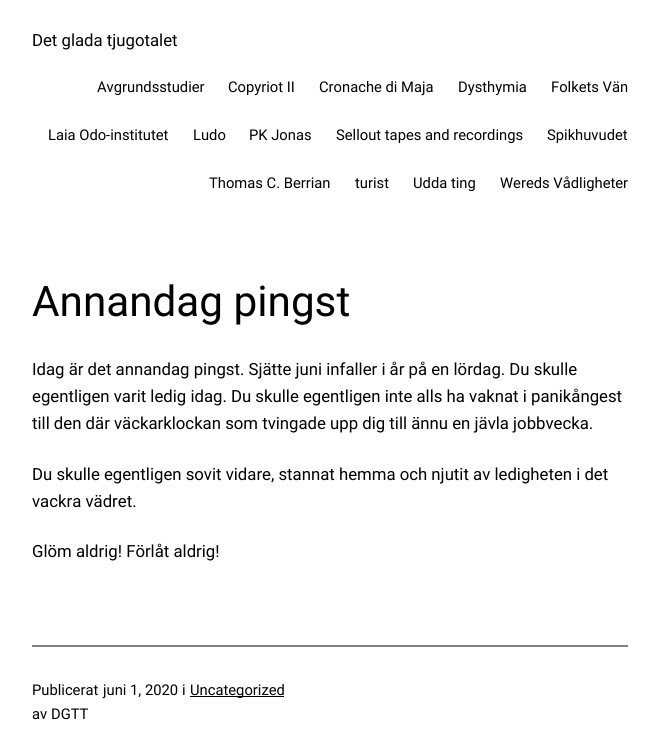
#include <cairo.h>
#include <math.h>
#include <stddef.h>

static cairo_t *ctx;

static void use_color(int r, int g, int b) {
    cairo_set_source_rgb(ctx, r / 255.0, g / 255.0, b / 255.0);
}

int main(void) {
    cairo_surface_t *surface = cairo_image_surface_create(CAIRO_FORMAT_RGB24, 660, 731);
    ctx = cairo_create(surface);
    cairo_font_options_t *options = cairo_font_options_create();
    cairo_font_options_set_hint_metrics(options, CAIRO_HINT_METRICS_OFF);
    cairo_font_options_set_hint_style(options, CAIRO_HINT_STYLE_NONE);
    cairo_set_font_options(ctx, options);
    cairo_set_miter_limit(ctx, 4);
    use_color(255, 255, 255);
    cairo_paint(ctx);
    cairo_select_font_face(ctx, "Roboto", CAIRO_FONT_SLANT_NORMAL, CAIRO_FONT_WEIGHT_NORMAL);
    cairo_set_font_size(ctx, 16.75);
    use_color(0, 0, 0);
    cairo_move_to(ctx, 32, 46);
    cairo_show_text(ctx, "Det glada tjugotalet");
    cairo_set_font_size(ctx, 14.75);
    cairo_move_to(ctx, 97, 92);
    cairo_show_text(ctx, "Avgrundsstudier");
    cairo_move_to(ctx, 228, 92);
    cairo_show_text(ctx, "Copyriot II");
    cairo_move_to(ctx, 319, 92);
    cairo_show_text(ctx, "Cronache di Maja");
    cairo_move_to(ctx, 458, 92);
    cairo_show_text(ctx, "Dysthymia");
    cairo_move_to(ctx, 551, 92);
    cairo_show_text(ctx, "Folkets Vän");
    cairo_move_to(ctx, 48, 140);
    cairo_show_text(ctx, "Laia Odo-institutet");
    cairo_move_to(ctx, 193, 140);
    cairo_show_text(ctx, "Ludo");
    cairo_move_to(ctx, 249, 140);
    cairo_show_text(ctx, "PK Jonas");
    cairo_move_to(ctx, 336, 140);
    cairo_show_text(ctx, "Sellout tapes and recordings");
    cairo_move_to(ctx, 547, 140);
    cairo_show_text(ctx, "Spikhuvudet");
    cairo_move_to(ctx, 209, 188);
    cairo_show_text(ctx, "Thomas C. Berrian");
    cairo_move_to(ctx, 355, 188);
    cairo_show_text(ctx, "turist");
    cairo_move_to(ctx, 413, 188);
    cairo_show_text(ctx, "Udda ting");
    cairo_move_to(ctx, 500, 188);
    cairo_show_text(ctx, "Wereds Vådligheter");
    cairo_set_font_size(ctx, 42.25);
    cairo_move_to(ctx, 32, 316);
    cairo_show_text(ctx, "Annandag pingst");
    cairo_set_font_size(ctx, 16.75);
    cairo_move_to(ctx, 32, 375);
    cairo_show_text(ctx, "Idag är det annandag pingst. Sjätte juni infaller i år på en lördag. Du skulle");
    cairo_move_to(ctx, 32, 402);
    cairo_show_text(ctx, "egentligen varit ledig idag. Du skulle egentligen inte alls ha vaknat i panikångest");
    cairo_move_to(ctx, 32, 429);
    cairo_show_text(ctx, "till den där väckarklockan som tvingade upp dig till ännu en jävla jobbvecka.");
    cairo_move_to(ctx, 32, 480);
    cairo_show_text(ctx, "Du skulle egentligen sovit vidare, stannat hemma och njutit av ledigheten i det");
    cairo_move_to(ctx, 32, 507);
    cairo_show_text(ctx, "vackra vädret.");
    cairo_move_to(ctx, 32, 557);
    cairo_show_text(ctx, "Glöm aldrig! Förlåt aldrig!");
    use_color(128, 128, 128);
    cairo_rectangle(ctx, 32, 645, 596, 2);
    cairo_fill(ctx);
    cairo_set_font_size(ctx, 14.75);
    use_color(0, 0, 0);
    cairo_move_to(ctx, 32, 695);
    cairo_show_text(ctx, "Publicerat");
    cairo_move_to(ctx, 103, 695);
    cairo_show_text(ctx, "juni 1, 2020");
    cairo_move_to(ctx, 182, 695);
    cairo_show_text(ctx, "i");
    cairo_rectangle(ctx, 190, 696, 94, 1);
    cairo_fill(ctx);
    cairo_move_to(ctx, 190, 695);
    cairo_show_text(ctx, "Uncategorized");
    cairo_move_to(ctx, 32, 719);
    cairo_show_text(ctx, "av");
    cairo_move_to(ctx, 51, 719);
    cairo_show_text(ctx, "DGTT");
    cairo_surface_write_to_png(surface, "result.png");
    cairo_font_options_destroy(options);
    cairo_destroy(ctx);
    cairo_surface_destroy(surface);
    return 0;
}
